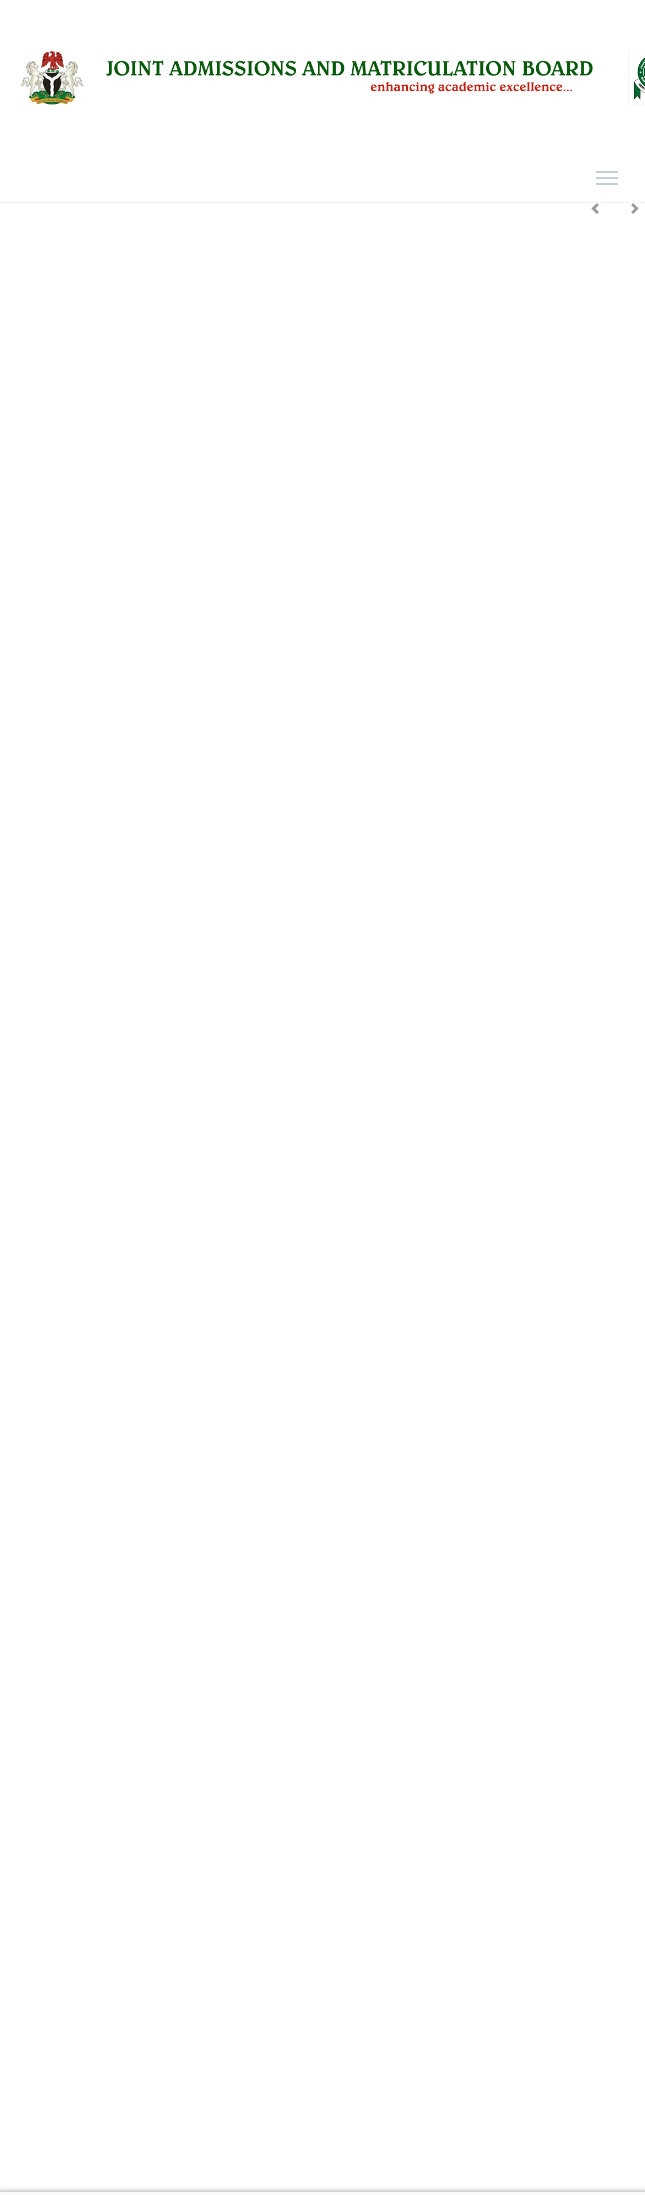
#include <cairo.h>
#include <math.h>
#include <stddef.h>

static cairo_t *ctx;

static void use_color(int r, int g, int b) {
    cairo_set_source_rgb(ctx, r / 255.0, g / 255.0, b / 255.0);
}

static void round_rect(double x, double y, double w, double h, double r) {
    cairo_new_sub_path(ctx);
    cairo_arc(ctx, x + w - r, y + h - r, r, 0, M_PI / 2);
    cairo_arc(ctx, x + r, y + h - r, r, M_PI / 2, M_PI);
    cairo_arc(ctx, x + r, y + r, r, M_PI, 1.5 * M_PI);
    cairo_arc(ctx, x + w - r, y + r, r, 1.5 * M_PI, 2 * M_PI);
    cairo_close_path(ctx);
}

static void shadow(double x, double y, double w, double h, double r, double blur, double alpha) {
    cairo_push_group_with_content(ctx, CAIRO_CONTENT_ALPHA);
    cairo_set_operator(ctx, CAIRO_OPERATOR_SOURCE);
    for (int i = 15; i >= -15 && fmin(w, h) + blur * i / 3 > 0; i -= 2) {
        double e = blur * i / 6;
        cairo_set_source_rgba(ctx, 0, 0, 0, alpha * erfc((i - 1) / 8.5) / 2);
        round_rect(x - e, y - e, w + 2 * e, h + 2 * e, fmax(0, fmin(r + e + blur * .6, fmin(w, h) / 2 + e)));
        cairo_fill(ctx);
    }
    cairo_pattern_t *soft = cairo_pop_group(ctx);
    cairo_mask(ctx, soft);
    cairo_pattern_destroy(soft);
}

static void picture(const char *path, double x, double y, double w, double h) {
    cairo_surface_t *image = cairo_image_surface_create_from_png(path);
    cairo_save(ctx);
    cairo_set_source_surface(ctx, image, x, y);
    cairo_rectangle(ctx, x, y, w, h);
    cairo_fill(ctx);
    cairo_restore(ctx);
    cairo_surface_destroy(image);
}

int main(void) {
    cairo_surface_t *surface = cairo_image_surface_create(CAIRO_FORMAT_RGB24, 645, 2195);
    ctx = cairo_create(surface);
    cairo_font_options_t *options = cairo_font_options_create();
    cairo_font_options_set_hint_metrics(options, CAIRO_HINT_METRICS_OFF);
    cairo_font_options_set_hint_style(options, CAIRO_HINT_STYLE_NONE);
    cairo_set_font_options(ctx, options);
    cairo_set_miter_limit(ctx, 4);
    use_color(255, 255, 255);
    cairo_paint(ctx);
    use_color(238, 238, 238);
    cairo_rectangle(ctx, 0, 202, 645, 1);
    cairo_fill(ctx);
    use_color(247, 247, 247);
    cairo_rectangle(ctx, 628, 202, 12, 1);
    cairo_fill(ctx);
    cairo_rectangle(ctx, 590, 202, 12, 1);
    cairo_fill(ctx);
    picture("img1.png", 20, 50, 625, 55);
    picture("img2.png", 596, 171, 22, 14);
    picture("img3.png", 591, 203, 8, 11);
    picture("img4.png", 631, 203, 8, 11);
    use_color(0, 0, 0);
    shadow(0, 2191, 645, 3, 0, 2.5, 0.3);
    use_color(249, 249, 249);
    cairo_rectangle(ctx, 0, 2192, 645, 3);
    cairo_fill(ctx);
    cairo_surface_write_to_png(surface, "result.png");
    cairo_font_options_destroy(options);
    cairo_destroy(ctx);
    cairo_surface_destroy(surface);
    return 0;
}
